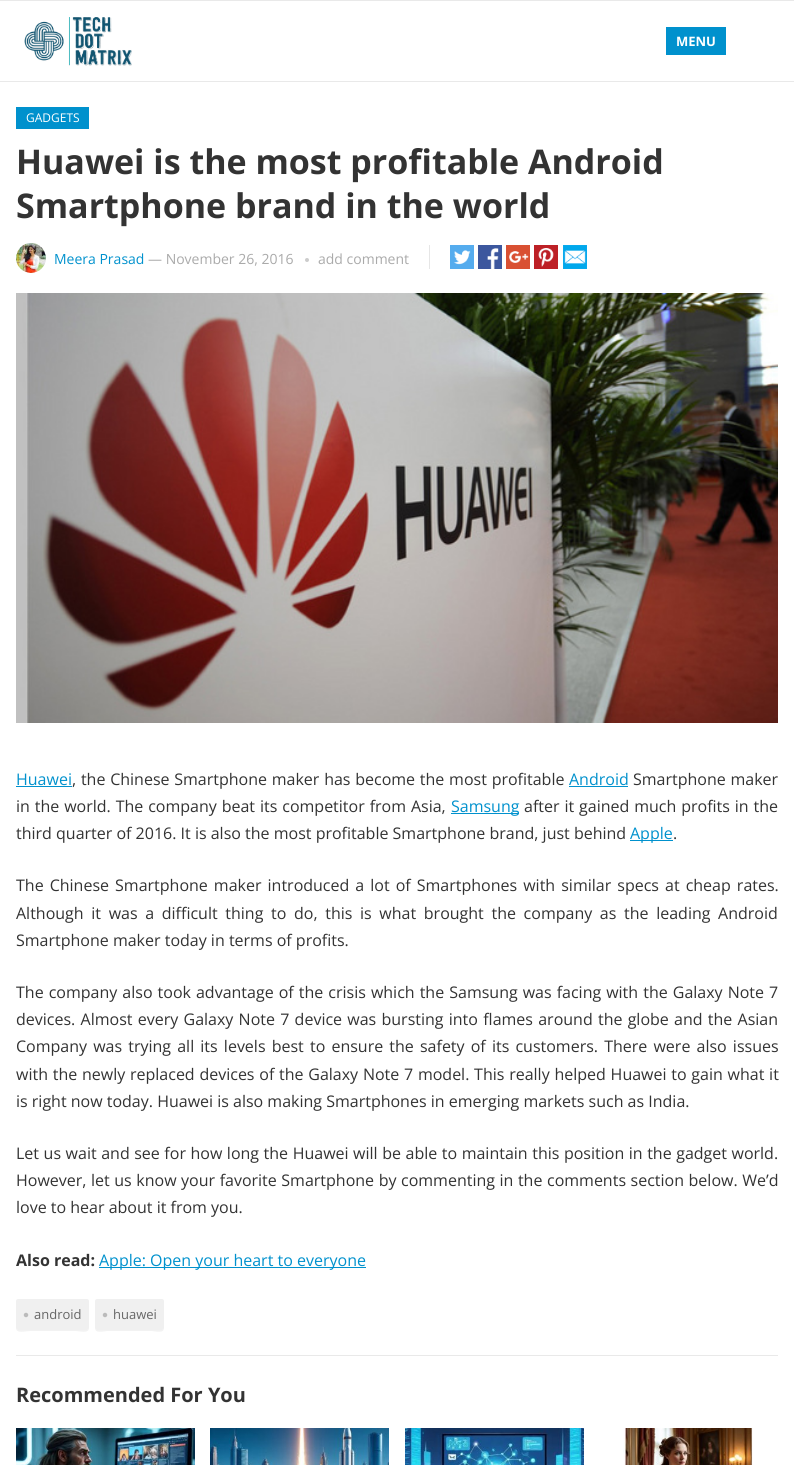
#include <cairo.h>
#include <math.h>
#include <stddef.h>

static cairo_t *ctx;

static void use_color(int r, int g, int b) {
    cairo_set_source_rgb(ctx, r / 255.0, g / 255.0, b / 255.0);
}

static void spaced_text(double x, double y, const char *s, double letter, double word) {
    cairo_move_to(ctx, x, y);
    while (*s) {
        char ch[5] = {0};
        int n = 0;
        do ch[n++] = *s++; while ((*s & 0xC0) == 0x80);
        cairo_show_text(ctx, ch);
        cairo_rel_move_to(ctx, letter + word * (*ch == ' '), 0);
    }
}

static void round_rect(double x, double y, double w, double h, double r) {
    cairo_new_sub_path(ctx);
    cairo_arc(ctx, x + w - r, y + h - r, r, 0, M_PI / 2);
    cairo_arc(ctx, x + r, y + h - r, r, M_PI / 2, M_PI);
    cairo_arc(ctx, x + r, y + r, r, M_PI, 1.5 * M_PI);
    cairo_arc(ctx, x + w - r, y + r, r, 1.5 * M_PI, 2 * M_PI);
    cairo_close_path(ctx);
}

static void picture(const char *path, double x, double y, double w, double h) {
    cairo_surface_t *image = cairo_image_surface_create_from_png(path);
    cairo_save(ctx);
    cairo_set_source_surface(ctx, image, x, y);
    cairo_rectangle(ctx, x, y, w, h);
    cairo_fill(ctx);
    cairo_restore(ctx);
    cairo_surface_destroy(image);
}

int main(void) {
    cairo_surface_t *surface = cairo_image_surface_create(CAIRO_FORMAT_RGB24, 794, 1465);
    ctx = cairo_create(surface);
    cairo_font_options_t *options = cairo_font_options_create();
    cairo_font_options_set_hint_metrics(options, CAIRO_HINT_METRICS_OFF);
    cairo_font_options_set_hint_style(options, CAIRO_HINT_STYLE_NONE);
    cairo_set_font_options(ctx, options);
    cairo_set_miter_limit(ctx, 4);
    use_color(255, 255, 255);
    cairo_paint(ctx);
    use_color(233, 233, 233);
    cairo_rectangle(ctx, 0, 81, 794, 1);
    cairo_fill(ctx);
    cairo_rectangle(ctx, 0, 0, 794, 1);
    cairo_fill(ctx);
    picture("img1.png", 24, 17, 108, 49);
    use_color(0, 145, 205);
    cairo_rectangle(ctx, 666, 27, 60, 28);
    cairo_fill(ctx);
    cairo_select_font_face(ctx, "Open Sans", CAIRO_FONT_SLANT_NORMAL, CAIRO_FONT_WEIGHT_BOLD);
    cairo_set_font_size(ctx, 13);
    use_color(255, 255, 255);
    cairo_move_to(ctx, 676, 46);
    cairo_show_text(ctx, "MENU");
    use_color(0, 145, 205);
    cairo_rectangle(ctx, 16, 107, 73, 22);
    cairo_fill(ctx);
    cairo_select_font_face(ctx, "Open Sans", CAIRO_FONT_SLANT_NORMAL, CAIRO_FONT_WEIGHT_NORMAL);
    cairo_set_font_size(ctx, 12);
    use_color(255, 255, 255);
    cairo_move_to(ctx, 26, 122);
    cairo_show_text(ctx, "GADGETS");
    cairo_select_font_face(ctx, "Open Sans", CAIRO_FONT_SLANT_NORMAL, CAIRO_FONT_WEIGHT_BOLD);
    cairo_set_font_size(ctx, 34);
    use_color(51, 51, 51);
    cairo_move_to(ctx, 16, 174);
    cairo_show_text(ctx, "Huawei is the most profitable Android");
    cairo_move_to(ctx, 16, 218);
    cairo_show_text(ctx, "Smartphone brand in the world");
    picture("img2.png", 16, 243, 30, 30);
    cairo_select_font_face(ctx, "Open Sans", CAIRO_FONT_SLANT_NORMAL, CAIRO_FONT_WEIGHT_NORMAL);
    cairo_set_font_size(ctx, 14);
    use_color(0, 145, 205);
    cairo_move_to(ctx, 54, 264);
    cairo_show_text(ctx, "Meera Prasad");
    use_color(170, 170, 170);
    cairo_move_to(ctx, 148, 264);
    cairo_show_text(ctx, "— November 26, 2016");
    use_color(204, 204, 204);
    cairo_new_path(ctx);
    cairo_arc(ctx, 307, 260, 2, 0, 2 * M_PI);
    cairo_fill(ctx);
    use_color(170, 170, 170);
    cairo_move_to(ctx, 318, 264);
    cairo_show_text(ctx, "add comment");
    use_color(230, 230, 230);
    cairo_rectangle(ctx, 429, 245, 1, 24);
    cairo_fill(ctx);
    picture("img3.png", 450, 245, 24, 24);
    picture("img4.png", 478, 245, 24, 24);
    picture("img5.png", 506, 245, 24, 24);
    picture("img6.png", 534, 245, 24, 24);
    picture("img7.png", 563, 245, 24, 24);
    picture("img8.png", 16, 293, 762, 430);
    cairo_set_font_size(ctx, 16);
    use_color(0, 145, 205);
    cairo_move_to(ctx, 16, 785);
    cairo_show_text(ctx, "Huawei");
    cairo_rectangle(ctx, 16, 786, 56, 1);
    cairo_fill(ctx);
    use_color(51, 51, 51);
    spaced_text(72, 785, ", the Chinese Smartphone maker has become the most profitable", 0, 0.6);
    use_color(0, 145, 205);
    cairo_move_to(ctx, 569, 785);
    cairo_show_text(ctx, "Android");
    cairo_rectangle(ctx, 569, 786, 59, 1);
    cairo_fill(ctx);
    use_color(51, 51, 51);
    spaced_text(633, 785, "Smartphone maker", 0, 0.6);
    spaced_text(16, 812, "in the world. The company beat its competitor from Asia,", 0, 0.75);
    use_color(0, 145, 205);
    cairo_rectangle(ctx, 451, 813, 68, 1);
    cairo_fill(ctx);
    cairo_move_to(ctx, 451, 812);
    cairo_show_text(ctx, "Samsung");
    use_color(51, 51, 51);
    spaced_text(524, 812, "after it gained much profits in the", 0, 0.75);
    cairo_move_to(ctx, 16, 839);
    cairo_show_text(ctx, "third quarter of 2016. It is also the most profitable Smartphone brand, just behind");
    use_color(0, 145, 205);
    cairo_rectangle(ctx, 630, 840, 43, 1);
    cairo_fill(ctx);
    cairo_move_to(ctx, 630, 839);
    cairo_show_text(ctx, "Apple");
    use_color(51, 51, 51);
    cairo_move_to(ctx, 673, 839);
    cairo_show_text(ctx, ".");
    spaced_text(16, 891, "The Chinese Smartphone maker introduced a lot of Smartphones with similar specs at cheap rates.", 0, 1.9);
    spaced_text(16, 919, "Although it was a difficult thing to do, this is what brought the company as the leading Android", 0, 3.5);
    cairo_move_to(ctx, 16, 946);
    cairo_show_text(ctx, "Smartphone maker today in terms of profits.");
    spaced_text(16, 998, "The company also took advantage of the crisis which the Samsung was facing with the Galaxy Note 7", 0, 0.9);
    spaced_text(16, 1025, "devices. Almost every Galaxy Note 7 device was bursting into flames around the globe and the Asian", 0, 1.1);
    spaced_text(16, 1052, "Company was trying all its levels best to ensure the safety of its customers. There were also issues", 0, 2);
    spaced_text(16, 1080, "with the newly replaced devices of the Galaxy Note 7 model. This really helped Huawei to gain what it", 0, 0.6);
    cairo_move_to(ctx, 16, 1107);
    cairo_show_text(ctx, "is right now today. Huawei is also making Smartphones in emerging markets such as India.");
    spaced_text(16, 1159, "Let us wait and see for how long the Huawei will be able to maintain this position in the gadget world.", 0, 0.4);
    spaced_text(16, 1186, "However, let us know your favorite Smartphone by commenting in the comments section below. We’d", 0, 0.4);
    cairo_move_to(ctx, 16, 1213);
    cairo_show_text(ctx, "love to hear about it from you.");
    cairo_select_font_face(ctx, "Open Sans", CAIRO_FONT_SLANT_NORMAL, CAIRO_FONT_WEIGHT_BOLD);
    cairo_move_to(ctx, 16, 1266);
    cairo_show_text(ctx, "Also read:");
    use_color(0, 145, 205);
    cairo_rectangle(ctx, 99, 1267, 267, 1);
    cairo_fill(ctx);
    cairo_select_font_face(ctx, "Open Sans", CAIRO_FONT_SLANT_NORMAL, CAIRO_FONT_WEIGHT_NORMAL);
    cairo_move_to(ctx, 99, 1266);
    cairo_show_text(ctx, "Apple: Open your heart to everyone");
    use_color(242, 242, 242);
    cairo_new_path(ctx);
    cairo_move_to(ctx, 16, 1328);
    cairo_curve_to(ctx, 16, 1334, 26, 1331, 30, 1331);
    cairo_line_to(ctx, 76, 1331);
    cairo_curve_to(ctx, 79, 1331, 89, 1334, 89, 1328);
    cairo_curve_to(ctx, 89, 1329, 88, 1330, 87, 1330);
    cairo_line_to(ctx, 18, 1330);
    cairo_curve_to(ctx, 17, 1330, 16, 1329, 16, 1328);
    cairo_close_path(ctx);
    cairo_fill(ctx);
    use_color(240, 240, 240);
    round_rect(16, 1299, 73, 31, 2);
    cairo_fill(ctx);
    picture("img9.png", 23, 1312, 6, 6);
    cairo_set_font_size(ctx, 13);
    use_color(102, 102, 102);
    cairo_move_to(ctx, 34, 1319);
    cairo_show_text(ctx, "android");
    use_color(242, 242, 242);
    cairo_new_path(ctx);
    cairo_move_to(ctx, 95, 1328);
    cairo_curve_to(ctx, 95, 1334, 104, 1331, 108, 1331);
    cairo_line_to(ctx, 151, 1331);
    cairo_curve_to(ctx, 155, 1331, 164, 1334, 164, 1328);
    cairo_curve_to(ctx, 164, 1329, 163, 1330, 162, 1330);
    cairo_line_to(ctx, 96, 1330);
    cairo_close_path(ctx);
    cairo_fill(ctx);
    use_color(240, 240, 240);
    round_rect(95, 1299, 69, 31, 2);
    cairo_fill(ctx);
    picture("img9.png", 102, 1312, 6, 6);
    use_color(102, 102, 102);
    cairo_move_to(ctx, 113, 1319);
    cairo_show_text(ctx, "huawei");
    use_color(233, 233, 233);
    cairo_rectangle(ctx, 16, 1355, 762, 1);
    cairo_fill(ctx);
    cairo_select_font_face(ctx, "Open Sans", CAIRO_FONT_SLANT_NORMAL, CAIRO_FONT_WEIGHT_BOLD);
    cairo_set_font_size(ctx, 20);
    use_color(51, 51, 51);
    cairo_move_to(ctx, 16, 1402);
    cairo_show_text(ctx, "Recommended For You");
    picture("img10.png", 16, 1428, 179, 37);
    picture("img11.png", 210, 1428, 179, 37);
    picture("img12.png", 405, 1428, 179, 37);
    picture("img13.png", 623, 1428, 130, 37);
    cairo_surface_write_to_png(surface, "result.png");
    cairo_font_options_destroy(options);
    cairo_destroy(ctx);
    cairo_surface_destroy(surface);
    return 0;
}
